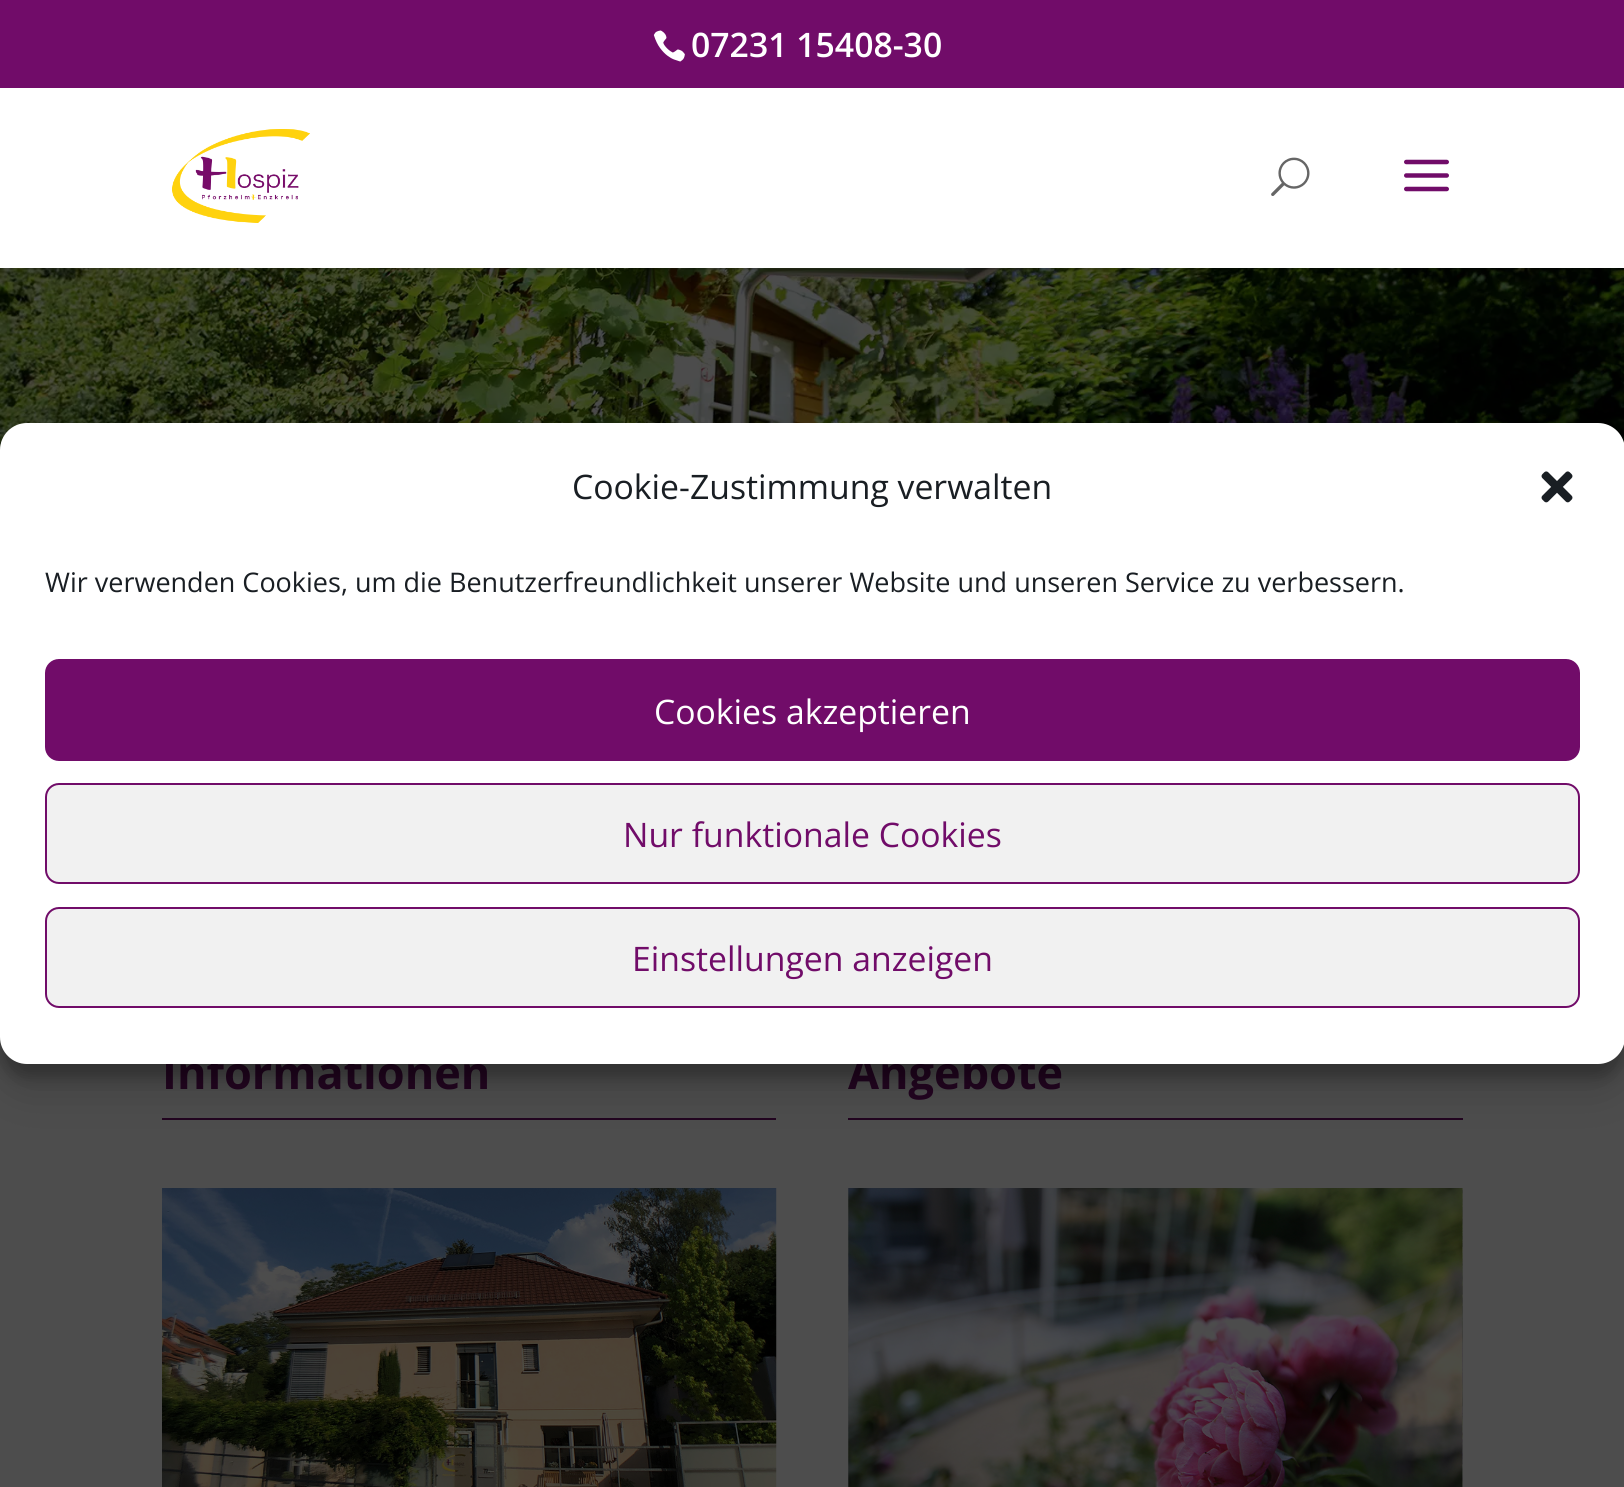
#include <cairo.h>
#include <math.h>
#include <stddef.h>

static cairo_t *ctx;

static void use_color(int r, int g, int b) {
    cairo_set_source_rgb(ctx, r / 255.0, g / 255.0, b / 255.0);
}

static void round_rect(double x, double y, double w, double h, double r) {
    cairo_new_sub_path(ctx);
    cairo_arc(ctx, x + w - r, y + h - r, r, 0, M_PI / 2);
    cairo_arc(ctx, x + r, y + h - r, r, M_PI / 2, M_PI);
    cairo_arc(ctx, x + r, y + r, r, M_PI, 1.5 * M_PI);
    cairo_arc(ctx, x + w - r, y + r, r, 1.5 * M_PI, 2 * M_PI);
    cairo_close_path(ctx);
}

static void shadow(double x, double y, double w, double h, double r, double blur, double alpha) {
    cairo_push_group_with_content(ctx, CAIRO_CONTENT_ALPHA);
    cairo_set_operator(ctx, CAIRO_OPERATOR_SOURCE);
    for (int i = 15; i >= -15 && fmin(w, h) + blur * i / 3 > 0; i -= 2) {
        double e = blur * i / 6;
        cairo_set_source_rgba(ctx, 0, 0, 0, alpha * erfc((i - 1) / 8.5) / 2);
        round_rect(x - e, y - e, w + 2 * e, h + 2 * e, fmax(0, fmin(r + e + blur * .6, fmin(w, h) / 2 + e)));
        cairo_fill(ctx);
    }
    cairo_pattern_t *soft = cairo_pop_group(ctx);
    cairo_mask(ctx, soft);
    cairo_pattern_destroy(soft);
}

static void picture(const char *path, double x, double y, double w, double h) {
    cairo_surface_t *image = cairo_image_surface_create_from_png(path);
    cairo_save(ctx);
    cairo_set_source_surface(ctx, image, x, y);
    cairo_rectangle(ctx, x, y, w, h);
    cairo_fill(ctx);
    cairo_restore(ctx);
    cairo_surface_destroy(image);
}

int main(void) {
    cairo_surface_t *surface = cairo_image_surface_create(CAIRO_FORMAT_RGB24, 1624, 1487);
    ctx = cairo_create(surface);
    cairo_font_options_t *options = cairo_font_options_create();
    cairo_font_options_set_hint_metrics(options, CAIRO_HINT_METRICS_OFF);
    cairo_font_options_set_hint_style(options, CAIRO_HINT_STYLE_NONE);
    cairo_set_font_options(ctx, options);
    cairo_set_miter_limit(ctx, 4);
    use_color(77, 77, 77);
    cairo_paint(ctx);
    use_color(113, 12, 105);
    cairo_rectangle(ctx, 0, 0, 1624, 88);
    cairo_fill(ctx);
    picture("img1.png", 653, 30, 32, 32);
    cairo_select_font_face(ctx, "Open Sans SemiBold", CAIRO_FONT_SLANT_NORMAL, CAIRO_FONT_WEIGHT_NORMAL);
    cairo_set_font_size(ctx, 33.75);
    use_color(255, 255, 255);
    cairo_move_to(ctx, 691, 57);
    cairo_show_text(ctx, "07231 15408-30");
    picture("img5.png", 0, 268, 1624, 182);
    cairo_set_source_rgba(ctx, 0, 0, 0, 0.1);
    cairo_new_path(ctx);
    cairo_move_to(ctx, 0, 268);
    cairo_line_to(ctx, 0, 270);
    cairo_line_to(ctx, 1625, 270);
    cairo_line_to(ctx, 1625, 90);
    cairo_line_to(ctx, 1624, 90);
    cairo_line_to(ctx, 1624, 268);
    cairo_close_path(ctx);
    cairo_fill(ctx);
    use_color(255, 255, 255);
    cairo_rectangle(ctx, 0, 88, 1624, 180);
    cairo_fill(ctx);
    picture("img2.png", 172, 129, 138, 94);
    picture("img3.png", 1271, 157, 39, 39);
    picture("img4.png", 1404, 159, 45, 33);
    use_color(34, 4, 32);
    cairo_rectangle(ctx, 162, 1118, 614, 2);
    cairo_fill(ctx);
    cairo_select_font_face(ctx, "Open Sans", CAIRO_FONT_SLANT_NORMAL, CAIRO_FONT_WEIGHT_BOLD);
    cairo_set_font_size(ctx, 45);
    cairo_move_to(ctx, 162, 1089);
    cairo_show_text(ctx, "Informationen");
    cairo_rectangle(ctx, 848, 1118, 615, 2);
    cairo_fill(ctx);
    cairo_move_to(ctx, 848, 1089);
    cairo_show_text(ctx, "Angebote");
    picture("img6.png", 162, 1188, 615, 299);
    picture("img7.png", 848, 1188, 615, 299);
    use_color(0, 0, 0);
    shadow(0, 437, 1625, 641, 27, 7, 0.23);
    shadow(0, 446, 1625, 641, 27, 22.5, 0.19);
    use_color(255, 255, 255);
    round_rect(0, 423, 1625, 641, 27);
    cairo_fill(ctx);
    cairo_select_font_face(ctx, "Open Sans", CAIRO_FONT_SLANT_NORMAL, CAIRO_FONT_WEIGHT_NORMAL);
    cairo_set_font_size(ctx, 33.75);
    use_color(25, 30, 35);
    cairo_move_to(ctx, 572, 499);
    cairo_show_text(ctx, "Cookie-Zustimmung verwalten");
    picture("img8.png", 1541, 471, 32, 32);
    cairo_set_font_size(ctx, 27);
    cairo_move_to(ctx, 45, 592);
    cairo_show_text(ctx, "Wir verwenden Cookies, um die Benutzerfreundlichkeit unserer Website und unseren Service zu verbessern.");
    use_color(113, 12, 105);
    round_rect(46, 660, 1533, 100, 13);
    cairo_fill_preserve(ctx);
    cairo_stroke(ctx);
    cairo_set_font_size(ctx, 33.75);
    use_color(255, 255, 255);
    cairo_move_to(ctx, 654, 724);
    cairo_show_text(ctx, "Cookies akzeptieren");
    use_color(241, 241, 241);
    round_rect(46, 784, 1533, 99, 13);
    cairo_fill_preserve(ctx);
    use_color(113, 12, 105);
    cairo_stroke(ctx);
    cairo_move_to(ctx, 623, 847);
    cairo_show_text(ctx, "Nur funktionale Cookies");
    use_color(241, 241, 241);
    round_rect(46, 908, 1533, 99, 13);
    cairo_fill_preserve(ctx);
    use_color(113, 12, 105);
    cairo_stroke(ctx);
    cairo_move_to(ctx, 632, 971);
    cairo_show_text(ctx, "Einstellungen anzeigen");
    cairo_surface_write_to_png(surface, "result.png");
    cairo_font_options_destroy(options);
    cairo_destroy(ctx);
    cairo_surface_destroy(surface);
    return 0;
}
